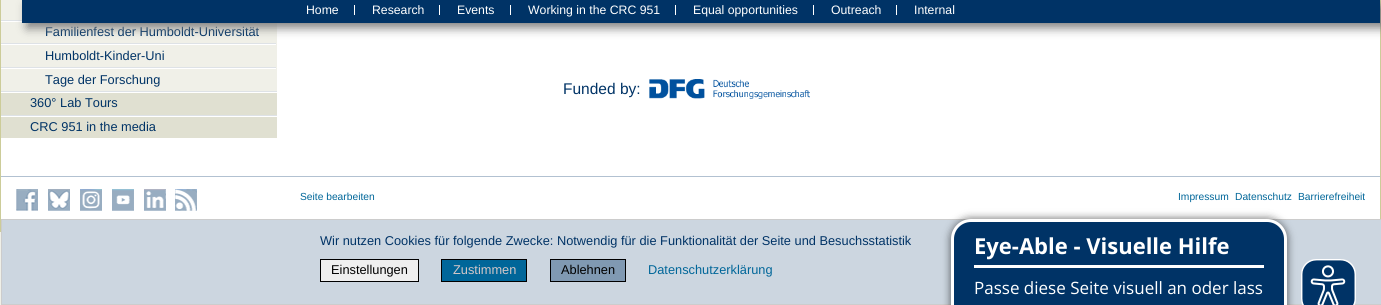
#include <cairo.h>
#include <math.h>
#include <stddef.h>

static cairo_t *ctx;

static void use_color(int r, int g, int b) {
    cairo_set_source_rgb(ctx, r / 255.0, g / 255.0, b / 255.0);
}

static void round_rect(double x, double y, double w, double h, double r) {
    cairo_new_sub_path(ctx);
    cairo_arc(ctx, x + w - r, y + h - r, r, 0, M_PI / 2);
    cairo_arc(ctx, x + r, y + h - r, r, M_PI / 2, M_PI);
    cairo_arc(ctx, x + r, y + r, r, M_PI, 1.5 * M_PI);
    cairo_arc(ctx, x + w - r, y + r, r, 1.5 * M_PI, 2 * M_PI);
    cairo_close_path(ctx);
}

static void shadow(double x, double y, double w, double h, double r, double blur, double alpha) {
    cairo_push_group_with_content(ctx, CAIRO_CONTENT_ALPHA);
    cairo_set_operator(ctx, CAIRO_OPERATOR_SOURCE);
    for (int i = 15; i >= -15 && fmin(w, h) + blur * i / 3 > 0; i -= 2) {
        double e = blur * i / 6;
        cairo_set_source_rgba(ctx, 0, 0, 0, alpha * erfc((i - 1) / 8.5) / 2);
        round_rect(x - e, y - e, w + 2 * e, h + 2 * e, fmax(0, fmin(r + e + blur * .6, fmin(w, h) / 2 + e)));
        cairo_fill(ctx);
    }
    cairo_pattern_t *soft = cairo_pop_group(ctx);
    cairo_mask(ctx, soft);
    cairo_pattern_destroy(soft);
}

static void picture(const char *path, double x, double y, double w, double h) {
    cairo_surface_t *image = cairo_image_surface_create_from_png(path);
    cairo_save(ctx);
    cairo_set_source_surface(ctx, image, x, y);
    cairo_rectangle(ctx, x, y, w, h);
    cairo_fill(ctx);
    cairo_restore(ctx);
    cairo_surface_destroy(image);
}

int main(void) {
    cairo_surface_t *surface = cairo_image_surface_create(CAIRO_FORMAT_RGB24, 1381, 305);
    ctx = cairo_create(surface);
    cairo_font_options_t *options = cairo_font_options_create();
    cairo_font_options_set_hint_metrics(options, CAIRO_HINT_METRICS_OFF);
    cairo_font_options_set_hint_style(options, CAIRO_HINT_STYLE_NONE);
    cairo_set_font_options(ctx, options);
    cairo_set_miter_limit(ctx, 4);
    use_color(240, 240, 232);
    cairo_paint(ctx);
    use_color(255, 255, 255);
    cairo_rectangle(ctx, 1, 23, 1379, 196);
    cairo_fill(ctx);
    use_color(204, 204, 153);
    cairo_rectangle(ctx, 1380, 0, 1, 219);
    cairo_fill(ctx);
    cairo_rectangle(ctx, 0, 0, 1, 232);
    cairo_fill(ctx);
    use_color(240, 240, 232);
    cairo_rectangle(ctx, 1, 23, 275, 20);
    cairo_fill(ctx);
    use_color(222, 226, 230);
    cairo_rectangle(ctx, 1, 20, 21, 1);
    cairo_fill(ctx);
    use_color(240, 240, 232);
    cairo_rectangle(ctx, 276, 20, 1, 23);
    cairo_fill(ctx);
    use_color(255, 255, 255);
    cairo_rectangle(ctx, 1, 21, 21, 1);
    cairo_fill(ctx);
    cairo_select_font_face(ctx, "Liberation Sans", CAIRO_FONT_SLANT_NORMAL, CAIRO_FONT_WEIGHT_NORMAL);
    cairo_set_font_size(ctx, 12.8);
    use_color(0, 51, 102);
    cairo_move_to(ctx, 45, 36);
    cairo_show_text(ctx, "Familienfest der Humboldt-Universität");
    use_color(240, 240, 232);
    cairo_rectangle(ctx, 1, 45, 275, 22);
    cairo_fill(ctx);
    use_color(222, 226, 230);
    cairo_rectangle(ctx, 1, 43, 276, 1);
    cairo_fill(ctx);
    use_color(240, 240, 232);
    cairo_rectangle(ctx, 276, 43, 1, 24);
    cairo_fill(ctx);
    use_color(0, 51, 102);
    cairo_move_to(ctx, 45, 60);
    cairo_show_text(ctx, "Humboldt-Kinder-Uni");
    use_color(240, 240, 232);
    cairo_rectangle(ctx, 1, 69, 275, 22);
    cairo_fill(ctx);
    use_color(222, 226, 230);
    cairo_rectangle(ctx, 1, 67, 276, 1);
    cairo_fill(ctx);
    use_color(240, 240, 232);
    cairo_rectangle(ctx, 276, 67, 1, 24);
    cairo_fill(ctx);
    use_color(0, 51, 102);
    cairo_move_to(ctx, 45, 84);
    cairo_show_text(ctx, "Tage der Forschung");
    use_color(224, 224, 209);
    cairo_rectangle(ctx, 1, 93, 276, 22);
    cairo_fill(ctx);
    use_color(222, 226, 230);
    cairo_rectangle(ctx, 1, 91, 276, 1);
    cairo_fill(ctx);
    use_color(0, 51, 102);
    cairo_move_to(ctx, 30, 107);
    cairo_show_text(ctx, "360° Lab Tours");
    use_color(224, 224, 209);
    cairo_rectangle(ctx, 1, 117, 276, 21);
    cairo_fill(ctx);
    use_color(222, 226, 230);
    cairo_rectangle(ctx, 1, 115, 276, 1);
    cairo_fill(ctx);
    use_color(0, 51, 102);
    cairo_move_to(ctx, 30, 131);
    cairo_show_text(ctx, "CRC 951 in the media");
    use_color(128, 128, 128);
    shadow(27, 5, 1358, 23, 0, 5, 1);
    use_color(0, 51, 102);
    cairo_rectangle(ctx, 22, 0, 1358, 23);
    cairo_fill(ctx);
    cairo_set_font_size(ctx, 12.25);
    use_color(255, 255, 255);
    cairo_move_to(ctx, 306, 14);
    cairo_show_text(ctx, "Home");
    cairo_rectangle(ctx, 354, 5, 1, 10);
    cairo_fill(ctx);
    cairo_move_to(ctx, 372, 14);
    cairo_show_text(ctx, "Research");
    cairo_rectangle(ctx, 439, 5, 1, 10);
    cairo_fill(ctx);
    cairo_move_to(ctx, 457, 14);
    cairo_show_text(ctx, "Events");
    cairo_rectangle(ctx, 510, 5, 1, 10);
    cairo_fill(ctx);
    cairo_move_to(ctx, 528, 14);
    cairo_show_text(ctx, "Working in the CRC 951");
    cairo_rectangle(ctx, 675, 5, 1, 10);
    cairo_fill(ctx);
    cairo_move_to(ctx, 693, 14);
    cairo_show_text(ctx, "Equal opportunities");
    cairo_rectangle(ctx, 813, 5, 1, 10);
    cairo_fill(ctx);
    cairo_move_to(ctx, 831, 14);
    cairo_show_text(ctx, "Outreach");
    cairo_rectangle(ctx, 896, 5, 1, 10);
    cairo_fill(ctx);
    cairo_move_to(ctx, 914, 14);
    cairo_show_text(ctx, "Internal");
    cairo_set_font_size(ctx, 15.5);
    use_color(0, 51, 102);
    cairo_move_to(ctx, 563, 94);
    cairo_show_text(ctx, "Funded by:");
    picture("img1.png", 649, 79, 161, 20);
    use_color(178, 193, 209);
    cairo_rectangle(ctx, 1, 176, 1379, 1);
    cairo_fill(ctx);
    picture("img2.png", 16, 189, 22, 22);
    picture("img3.png", 48, 189, 22, 22);
    picture("img4.png", 80, 189, 22, 22);
    picture("img5.png", 112, 189, 22, 22);
    picture("img6.png", 144, 189, 22, 22);
    picture("img7.png", 175, 189, 22, 22);
    cairo_set_font_size(ctx, 10.25);
    use_color(0, 102, 153);
    cairo_move_to(ctx, 300, 200);
    cairo_show_text(ctx, "Seite bearbeiten");
    cairo_move_to(ctx, 1178, 200);
    cairo_show_text(ctx, "Impressum");
    cairo_move_to(ctx, 1235, 200);
    cairo_show_text(ctx, "Datenschutz");
    cairo_move_to(ctx, 1298, 200);
    cairo_show_text(ctx, "Barrierefreiheit");
    use_color(204, 214, 224);
    cairo_rectangle(ctx, 1.5, 219.5, 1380, 85);
    cairo_fill_preserve(ctx);
    use_color(204, 204, 204);
    cairo_set_line_width(ctx, 1);
    cairo_stroke(ctx);
    cairo_set_font_size(ctx, 12.8);
    use_color(0, 51, 102);
    cairo_move_to(ctx, 320, 245);
    cairo_show_text(ctx, "Wir nutzen Cookies für folgende Zwecke: Notwendig für die Funktionalität der Seite und Besuchsstatistik");
    use_color(239, 239, 239);
    cairo_rectangle(ctx, 320.5, 259.5, 98, 22);
    cairo_fill_preserve(ctx);
    use_color(0, 0, 0);
    cairo_stroke(ctx);
    cairo_move_to(ctx, 331, 274);
    cairo_show_text(ctx, "Einstellungen");
    use_color(0, 102, 153);
    cairo_rectangle(ctx, 441.5, 259.5, 85, 22);
    cairo_fill_preserve(ctx);
    use_color(0, 0, 0);
    cairo_stroke(ctx);
    use_color(213, 199, 199);
    cairo_move_to(ctx, 453, 274);
    cairo_show_text(ctx, "Zustimmen");
    use_color(128, 153, 178);
    cairo_rectangle(ctx, 550.5, 259.5, 75, 22);
    cairo_fill_preserve(ctx);
    use_color(0, 0, 0);
    cairo_stroke(ctx);
    cairo_move_to(ctx, 561, 274);
    cairo_show_text(ctx, "Ablehnen");
    use_color(0, 102, 153);
    cairo_move_to(ctx, 648, 274);
    cairo_show_text(ctx, "Datenschutzerklärung");
    use_color(0, 0, 0);
    shadow(950, 218, 338, 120, 21, 4, 0.5);
    use_color(0, 51, 102);
    round_rect(952.5, 220.5, 333, 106, 18.5);
    cairo_fill_preserve(ctx);
    use_color(255, 255, 255);
    cairo_set_line_width(ctx, 3);
    cairo_stroke(ctx);
    cairo_rectangle(ctx, 974, 265, 290, 3);
    cairo_fill(ctx);
    cairo_select_font_face(ctx, "Open Sans", CAIRO_FONT_SLANT_NORMAL, CAIRO_FONT_WEIGHT_BOLD);
    cairo_set_font_size(ctx, 22);
    cairo_move_to(ctx, 974, 254);
    cairo_show_text(ctx, "Eye-Able - Visuelle Hilfe");
    cairo_select_font_face(ctx, "Open Sans", CAIRO_FONT_SLANT_NORMAL, CAIRO_FONT_WEIGHT_NORMAL);
    cairo_set_font_size(ctx, 17);
    cairo_move_to(ctx, 974, 294);
    cairo_show_text(ctx, "Passe diese Seite visuell an oder lass");
    picture("img8.png", 1301, 259, 55, 46);
    cairo_surface_write_to_png(surface, "result.png");
    cairo_font_options_destroy(options);
    cairo_destroy(ctx);
    cairo_surface_destroy(surface);
    return 0;
}
